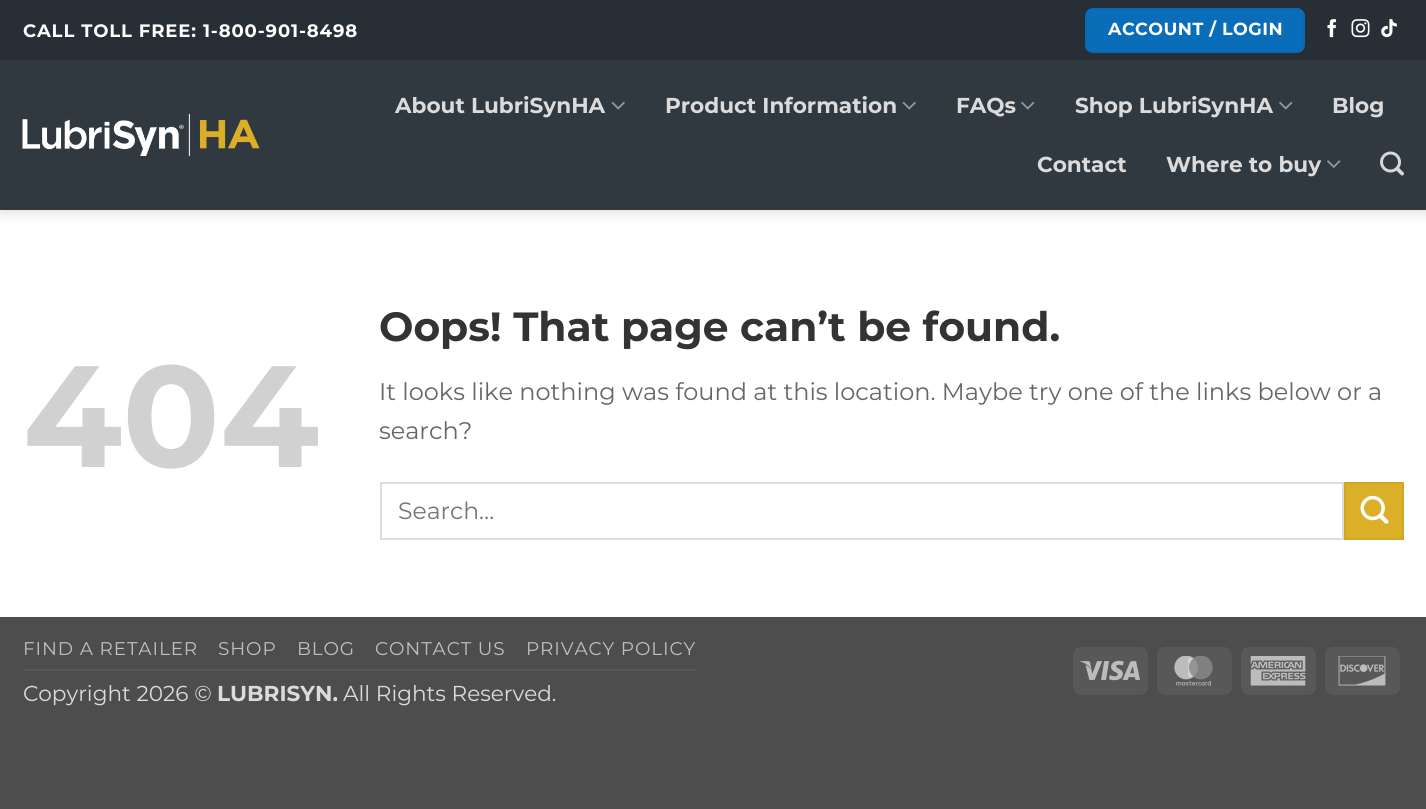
#include <cairo.h>
#include <math.h>
#include <stddef.h>

static cairo_t *ctx;

static void use_color(int r, int g, int b) {
    cairo_set_source_rgb(ctx, r / 255.0, g / 255.0, b / 255.0);
}

static void spaced_text(double x, double y, const char *s, double letter, double word) {
    cairo_move_to(ctx, x, y);
    while (*s) {
        char ch[5] = {0};
        int n = 0;
        do ch[n++] = *s++; while ((*s & 0xC0) == 0x80);
        cairo_show_text(ctx, ch);
        cairo_rel_move_to(ctx, letter + word * (*ch == ' '), 0);
    }
}

static void round_rect(double x, double y, double w, double h, double r) {
    cairo_new_sub_path(ctx);
    cairo_arc(ctx, x + w - r, y + h - r, r, 0, M_PI / 2);
    cairo_arc(ctx, x + r, y + h - r, r, M_PI / 2, M_PI);
    cairo_arc(ctx, x + r, y + r, r, M_PI, 1.5 * M_PI);
    cairo_arc(ctx, x + w - r, y + r, r, 1.5 * M_PI, 2 * M_PI);
    cairo_close_path(ctx);
}

static void shadow(double x, double y, double w, double h, double r, double blur, double alpha) {
    cairo_push_group_with_content(ctx, CAIRO_CONTENT_ALPHA);
    cairo_set_operator(ctx, CAIRO_OPERATOR_SOURCE);
    for (int i = 15; i >= -15 && fmin(w, h) + blur * i / 3 > 0; i -= 2) {
        double e = blur * i / 6;
        cairo_set_source_rgba(ctx, 0, 0, 0, alpha * erfc((i - 1) / 8.5) / 2);
        round_rect(x - e, y - e, w + 2 * e, h + 2 * e, fmax(0, fmin(r + e + blur * .6, fmin(w, h) / 2 + e)));
        cairo_fill(ctx);
    }
    cairo_pattern_t *soft = cairo_pop_group(ctx);
    cairo_mask(ctx, soft);
    cairo_pattern_destroy(soft);
}

static void picture(const char *path, double x, double y, double w, double h) {
    cairo_surface_t *image = cairo_image_surface_create_from_png(path);
    cairo_save(ctx);
    cairo_set_source_surface(ctx, image, x, y);
    cairo_rectangle(ctx, x, y, w, h);
    cairo_fill(ctx);
    cairo_restore(ctx);
    cairo_surface_destroy(image);
}

int main(void) {
    cairo_surface_t *surface = cairo_image_surface_create(CAIRO_FORMAT_RGB24, 1426, 809);
    ctx = cairo_create(surface);
    cairo_font_options_t *options = cairo_font_options_create();
    cairo_font_options_set_hint_metrics(options, CAIRO_HINT_METRICS_OFF);
    cairo_font_options_set_hint_style(options, CAIRO_HINT_STYLE_NONE);
    cairo_set_font_options(ctx, options);
    cairo_set_miter_limit(ctx, 4);
    use_color(77, 77, 77);
    cairo_paint(ctx);
    use_color(255, 255, 255);
    cairo_rectangle(ctx, 0, 210, 1426, 407);
    cairo_fill(ctx);
    use_color(0, 0, 0);
    shadow(2, 2, 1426, 210, 0, 7.5, 0.15);
    use_color(39, 46, 53);
    cairo_rectangle(ctx, 0, 0, 1426, 60);
    cairo_fill(ctx);
    cairo_select_font_face(ctx, "Montserrat", CAIRO_FONT_SLANT_NORMAL, CAIRO_FONT_WEIGHT_BOLD);
    cairo_set_font_size(ctx, 18);
    use_color(255, 255, 255);
    spaced_text(23, 37, "CALL TOLL FREE: 1-800-901-8498", 0.9, 0);
    use_color(9, 109, 186);
    round_rect(1085, 8, 220, 45, 8);
    cairo_fill(ctx);
    cairo_rectangle(ctx, 1086, 9, 218, 43);
    cairo_set_source_rgba(ctx, 0, 0, 0, 0.05);
    cairo_stroke(ctx);
    cairo_set_font_size(ctx, 17.5);
    use_color(255, 255, 255);
    spaced_text(1108, 35, "ACCOUNT / LOGIN", 0.5, 0);
    picture("img1.png", 1327, 19, 9, 19);
    picture("img2.png", 1351, 19, 19, 19);
    picture("img3.png", 1381, 19, 16, 19);
    use_color(48, 56, 64);
    cairo_rectangle(ctx, 0, 60, 1426, 150);
    cairo_fill(ctx);
    picture("img4.png", 22, 114, 238, 42);
    cairo_set_font_size(ctx, 21.6);
    use_color(219, 219, 219);
    cairo_move_to(ctx, 395, 113);
    cairo_show_text(ctx, "About LubriSynHA");
    picture("img5.png", 611, 101, 14, 9);
    cairo_move_to(ctx, 665, 113);
    cairo_show_text(ctx, "Product Information");
    picture("img5.png", 902, 101, 14, 9);
    cairo_move_to(ctx, 956, 113);
    cairo_show_text(ctx, "FAQs");
    picture("img6.png", 1021, 101, 14, 9);
    cairo_move_to(ctx, 1075, 113);
    cairo_show_text(ctx, "Shop LubriSynHA");
    picture("img6.png", 1279, 101, 14, 9);
    cairo_move_to(ctx, 1332, 113);
    cairo_show_text(ctx, "Blog");
    cairo_move_to(ctx, 1037, 172);
    cairo_show_text(ctx, "Contact");
    cairo_move_to(ctx, 1166, 172);
    cairo_show_text(ctx, "Where to buy");
    picture("img7.png", 1327, 160, 14, 8);
    picture("img8.png", 1380, 151, 24, 25);
    cairo_set_font_size(ctx, 144);
    use_color(209, 209, 209);
    cairo_move_to(ctx, 23, 467);
    cairo_show_text(ctx, "404");
    cairo_set_font_size(ctx, 40.75);
    use_color(51, 51, 51);
    cairo_move_to(ctx, 379, 341);
    cairo_show_text(ctx, "Oops! That page can’t be found.");
    cairo_select_font_face(ctx, "Montserrat", CAIRO_FONT_SLANT_NORMAL, CAIRO_FONT_WEIGHT_NORMAL);
    cairo_set_font_size(ctx, 24);
    use_color(102, 102, 102);
    cairo_move_to(ctx, 379, 400);
    cairo_show_text(ctx, "It looks like nothing was found at this location. Maybe try one of the links below or a");
    cairo_move_to(ctx, 379, 439);
    cairo_show_text(ctx, "search?");
    cairo_rectangle(ctx, 381, 483, 962, 56);
    use_color(221, 221, 221);
    cairo_stroke(ctx);
    cairo_set_font_size(ctx, 23.5);
    use_color(117, 117, 117);
    cairo_move_to(ctx, 398, 519);
    cairo_show_text(ctx, "Search…");
    use_color(219, 175, 39);
    cairo_rectangle(ctx, 1345, 483, 58, 56);
    cairo_fill_preserve(ctx);
    use_color(208, 166, 37);
    cairo_stroke(ctx);
    picture("img9.png", 1360, 495, 29, 29);
    use_color(88, 88, 88);
    cairo_rectangle(ctx, 23, 669, 673, 2);
    cairo_fill(ctx);
    cairo_set_font_size(ctx, 18.4);
    use_color(191, 191, 191);
    spaced_text(23, 655, "FIND A RETAILER", 0.9, 0);
    spaced_text(218, 655, "SHOP", 0.9, 0);
    spaced_text(297, 655, "BLOG", 0.9, 0);
    spaced_text(375, 655, "CONTACT US", 0.9, 0);
    spaced_text(526, 655, "PRIVACY POLICY", 0.9, 0);
    cairo_set_font_size(ctx, 21.6);
    use_color(219, 219, 219);
    cairo_move_to(ctx, 23, 701);
    cairo_show_text(ctx, "Copyright 2026 ©");
    cairo_select_font_face(ctx, "Montserrat", CAIRO_FONT_SLANT_NORMAL, CAIRO_FONT_WEIGHT_BOLD);
    cairo_move_to(ctx, 217, 701);
    cairo_show_text(ctx, "LUBRISYN.");
    cairo_select_font_face(ctx, "Montserrat", CAIRO_FONT_SLANT_NORMAL, CAIRO_FONT_WEIGHT_NORMAL);
    cairo_move_to(ctx, 343, 701);
    cairo_show_text(ctx, "All Rights Reserved.");
    use_color(88, 88, 88);
    round_rect(1073, 647, 75, 48, 8);
    cairo_fill(ctx);
    picture("img10.png", 1080, 660, 60, 21);
    round_rect(1157, 647, 75, 48, 8);
    cairo_fill(ctx);
    picture("img11.png", 1174, 656, 39, 30);
    round_rect(1241, 647, 75, 48, 8);
    cairo_fill(ctx);
    picture("img12.png", 1250, 656, 56, 30);
    round_rect(1325, 647, 75, 48, 8);
    cairo_fill(ctx);
    picture("img13.png", 1338, 656, 48, 30);
    cairo_surface_write_to_png(surface, "result.png");
    cairo_font_options_destroy(options);
    cairo_destroy(ctx);
    cairo_surface_destroy(surface);
    return 0;
}
